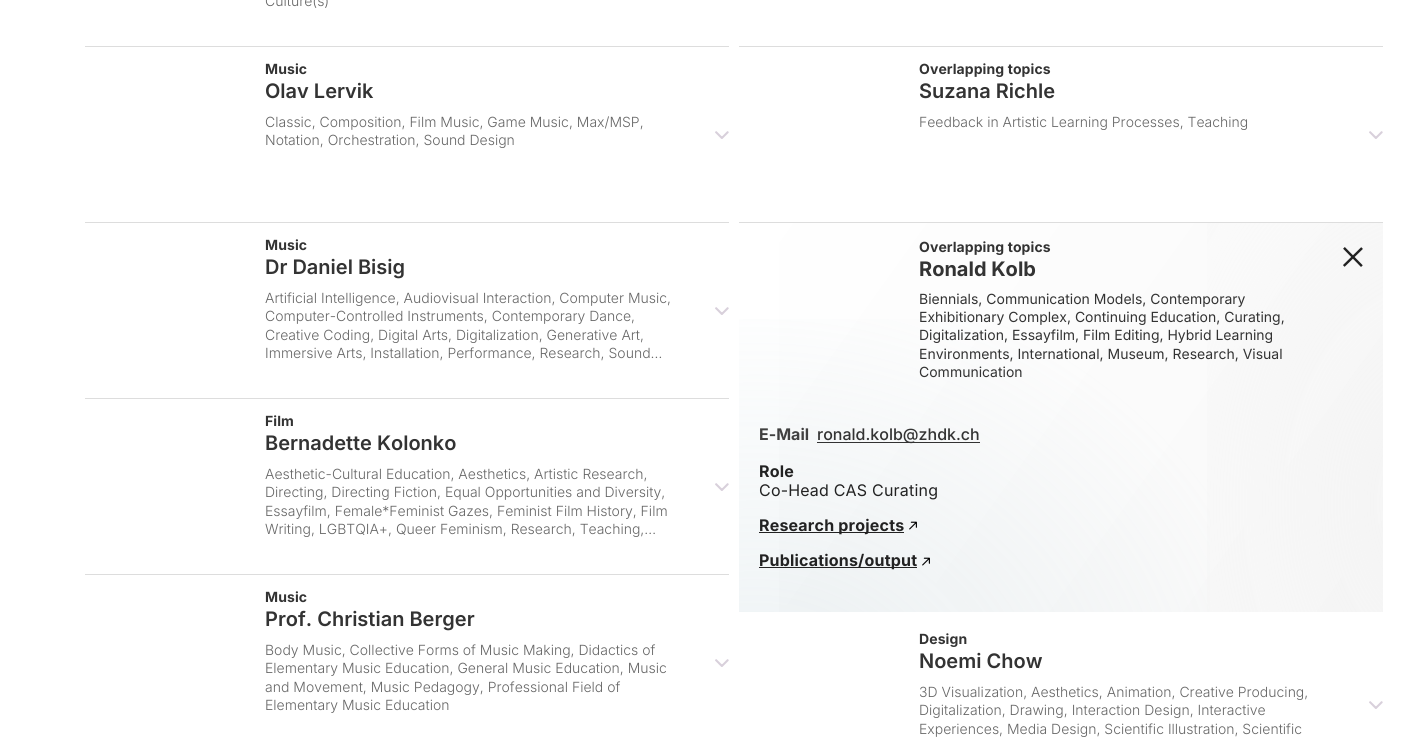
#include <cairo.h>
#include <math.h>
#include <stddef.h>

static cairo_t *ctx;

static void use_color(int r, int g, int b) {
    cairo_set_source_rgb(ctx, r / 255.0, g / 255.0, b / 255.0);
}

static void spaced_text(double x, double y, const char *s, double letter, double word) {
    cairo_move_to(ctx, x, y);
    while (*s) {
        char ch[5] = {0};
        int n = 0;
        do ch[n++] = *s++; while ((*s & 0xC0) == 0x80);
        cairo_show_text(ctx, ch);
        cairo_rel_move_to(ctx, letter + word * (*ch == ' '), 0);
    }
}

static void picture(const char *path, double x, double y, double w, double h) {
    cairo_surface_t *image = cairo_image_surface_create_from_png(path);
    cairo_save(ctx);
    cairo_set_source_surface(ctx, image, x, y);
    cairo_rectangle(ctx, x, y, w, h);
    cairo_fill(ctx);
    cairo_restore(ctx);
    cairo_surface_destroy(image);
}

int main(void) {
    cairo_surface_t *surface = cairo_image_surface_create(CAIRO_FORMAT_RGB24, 1427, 739);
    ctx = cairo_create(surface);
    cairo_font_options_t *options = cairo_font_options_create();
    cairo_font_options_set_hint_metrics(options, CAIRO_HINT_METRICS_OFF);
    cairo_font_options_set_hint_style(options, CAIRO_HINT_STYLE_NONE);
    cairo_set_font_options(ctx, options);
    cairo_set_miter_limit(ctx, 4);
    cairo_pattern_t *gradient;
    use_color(255, 255, 255);
    cairo_paint(ctx);
    use_color(221, 221, 221);
    cairo_rectangle(ctx, 85, 46, 644, 1);
    cairo_fill(ctx);
    cairo_select_font_face(ctx, "Inter Light", CAIRO_FONT_SLANT_NORMAL, CAIRO_FONT_WEIGHT_NORMAL);
    cairo_set_font_size(ctx, 14);
    use_color(102, 102, 102);
    cairo_move_to(ctx, 265, 6);
    cairo_show_text(ctx, "Culture(s)");
    use_color(221, 221, 221);
    cairo_rectangle(ctx, 739, 46, 644, 1);
    cairo_fill(ctx);
    cairo_rectangle(ctx, 85, 222, 644, 1);
    cairo_fill(ctx);
    cairo_select_font_face(ctx, "Inter", CAIRO_FONT_SLANT_NORMAL, CAIRO_FONT_WEIGHT_BOLD);
    use_color(51, 51, 51);
    spaced_text(265, 74, "Music", 0.1, 0);
    cairo_select_font_face(ctx, "Inter SemiBold", CAIRO_FONT_SLANT_NORMAL, CAIRO_FONT_WEIGHT_NORMAL);
    cairo_set_font_size(ctx, 20);
    cairo_move_to(ctx, 265, 98);
    cairo_show_text(ctx, "Olav Lervik");
    cairo_select_font_face(ctx, "Inter Light", CAIRO_FONT_SLANT_NORMAL, CAIRO_FONT_WEIGHT_NORMAL);
    cairo_set_font_size(ctx, 14);
    use_color(102, 102, 102);
    cairo_move_to(ctx, 265, 127);
    cairo_show_text(ctx, "Classic, Composition, Film Music, Game Music, Max/MSP,");
    cairo_move_to(ctx, 265, 145);
    cairo_show_text(ctx, "Notation, Orchestration, Sound Design");
    picture("img1.png", 715, 131, 14, 8);
    use_color(221, 221, 221);
    cairo_rectangle(ctx, 739, 222, 644, 1);
    cairo_fill(ctx);
    cairo_select_font_face(ctx, "Inter", CAIRO_FONT_SLANT_NORMAL, CAIRO_FONT_WEIGHT_BOLD);
    use_color(51, 51, 51);
    spaced_text(919, 74, "Overlapping topics", 0.1, 0);
    cairo_select_font_face(ctx, "Inter SemiBold", CAIRO_FONT_SLANT_NORMAL, CAIRO_FONT_WEIGHT_NORMAL);
    cairo_set_font_size(ctx, 20);
    cairo_move_to(ctx, 919, 98);
    cairo_show_text(ctx, "Suzana Richle");
    cairo_select_font_face(ctx, "Inter Light", CAIRO_FONT_SLANT_NORMAL, CAIRO_FONT_WEIGHT_NORMAL);
    cairo_set_font_size(ctx, 14);
    use_color(102, 102, 102);
    cairo_move_to(ctx, 919, 127);
    cairo_show_text(ctx, "Feedback in Artistic Learning Processes, Teaching");
    picture("img1.png", 1369, 131, 14, 8);
    use_color(221, 221, 221);
    cairo_rectangle(ctx, 85, 398, 644, 1);
    cairo_fill(ctx);
    cairo_select_font_face(ctx, "Inter", CAIRO_FONT_SLANT_NORMAL, CAIRO_FONT_WEIGHT_BOLD);
    use_color(51, 51, 51);
    spaced_text(265, 250, "Music", 0.1, 0);
    cairo_select_font_face(ctx, "Inter SemiBold", CAIRO_FONT_SLANT_NORMAL, CAIRO_FONT_WEIGHT_NORMAL);
    cairo_set_font_size(ctx, 20);
    cairo_move_to(ctx, 265, 274);
    cairo_show_text(ctx, "Dr Daniel Bisig");
    cairo_select_font_face(ctx, "Inter Light", CAIRO_FONT_SLANT_NORMAL, CAIRO_FONT_WEIGHT_NORMAL);
    cairo_set_font_size(ctx, 14);
    use_color(102, 102, 102);
    cairo_move_to(ctx, 265, 303);
    cairo_show_text(ctx, "Artificial Intelligence, Audiovisual Interaction, Computer Music,");
    cairo_move_to(ctx, 265, 321);
    cairo_show_text(ctx, "Computer-Controlled Instruments, Contemporary Dance,");
    cairo_move_to(ctx, 265, 340);
    cairo_show_text(ctx, "Creative Coding, Digital Arts, Digitalization, Generative Art,");
    cairo_move_to(ctx, 265, 358);
    cairo_show_text(ctx, "Immersive Arts, Installation, Performance, Research, Sound…");
    picture("img1.png", 715, 307, 14, 8);
    gradient = cairo_pattern_create_linear(748, 193, 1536, 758);
    cairo_pattern_add_color_stop_rgba(gradient, 0, 1, 1, 1, 1);
    cairo_pattern_add_color_stop_rgba(gradient, 1, 0.965, 0.965, 0.965, 1);
    cairo_set_source(ctx, gradient);
    cairo_pattern_destroy(gradient);
    cairo_rectangle(ctx, 779, 223, 604, 389);
    cairo_fill(ctx);
    gradient = cairo_pattern_create_radial(0, 0, 0, 0, 0, 1);
    cairo_pattern_set_matrix(gradient, &(cairo_matrix_t){1.0 / 533, 0, 0, 1.0 / 462, -1.0 * 756 / 533, -1.0 * 730 / 462});
    cairo_pattern_add_color_stop_rgba(gradient, 0, 0.675, 0.769, 0.804, 0.23);
    cairo_pattern_add_color_stop_rgba(gradient, 1, 0.675, 0.769, 0.804, 0);
    cairo_set_source(ctx, gradient);
    cairo_pattern_destroy(gradient);
    cairo_rectangle(ctx, 739, 319, 471, 293);
    cairo_fill(ctx);
    gradient = cairo_pattern_create_radial(0, 0, 0, 0, 0, 1);
    cairo_pattern_set_matrix(gradient, &(cairo_matrix_t){1.0 / 393, 0, 0, 1.0 / 561, -1.0 * 1441 / 393, -1.0 * 504 / 561});
    cairo_pattern_add_color_stop_rgba(gradient, 0, 0.941, 0.941, 0.941, 0.5);
    cairo_pattern_add_color_stop_rgba(gradient, 1, 0.941, 0.941, 0.941, 0);
    cairo_set_source(ctx, gradient);
    cairo_pattern_destroy(gradient);
    cairo_rectangle(ctx, 1207, 223, 176, 389);
    cairo_fill(ctx);
    cairo_select_font_face(ctx, "Inter", CAIRO_FONT_SLANT_NORMAL, CAIRO_FONT_WEIGHT_BOLD);
    use_color(51, 51, 51);
    spaced_text(919, 252, "Overlapping topics", 0.1, 0);
    cairo_set_font_size(ctx, 20);
    cairo_move_to(ctx, 919, 276);
    cairo_show_text(ctx, "Ronald Kolb");
    cairo_select_font_face(ctx, "Inter", CAIRO_FONT_SLANT_NORMAL, CAIRO_FONT_WEIGHT_NORMAL);
    cairo_set_font_size(ctx, 14);
    cairo_move_to(ctx, 919, 304);
    cairo_show_text(ctx, "Biennials, Communication Models, Contemporary");
    cairo_move_to(ctx, 919, 322);
    cairo_show_text(ctx, "Exhibitionary Complex, Continuing Education, Curating,");
    cairo_move_to(ctx, 919, 340);
    cairo_show_text(ctx, "Digitalization, Essayfilm, Film Editing, Hybrid Learning");
    cairo_move_to(ctx, 919, 359);
    cairo_show_text(ctx, "Environments, International, Museum, Research, Visual");
    cairo_move_to(ctx, 919, 377);
    cairo_show_text(ctx, "Communication");
    picture("img2.png", 1343, 247, 20, 20);
    cairo_select_font_face(ctx, "Inter", CAIRO_FONT_SLANT_NORMAL, CAIRO_FONT_WEIGHT_BOLD);
    cairo_set_font_size(ctx, 16);
    use_color(64, 64, 64);
    cairo_move_to(ctx, 759, 440);
    cairo_show_text(ctx, "E-Mail");
    use_color(51, 51, 51);
    cairo_rectangle(ctx, 817, 442, 163, 1);
    cairo_fill(ctx);
    cairo_select_font_face(ctx, "Inter Medium", CAIRO_FONT_SLANT_NORMAL, CAIRO_FONT_WEIGHT_NORMAL);
    cairo_move_to(ctx, 817, 440);
    cairo_show_text(ctx, "ronald.kolb@zhdk.ch");
    cairo_select_font_face(ctx, "Inter", CAIRO_FONT_SLANT_NORMAL, CAIRO_FONT_WEIGHT_BOLD);
    use_color(34, 34, 34);
    spaced_text(759, 477, "Role", 0.2, 0);
    cairo_select_font_face(ctx, "Inter", CAIRO_FONT_SLANT_NORMAL, CAIRO_FONT_WEIGHT_NORMAL);
    spaced_text(759, 496, "Co-Head CAS Curating", 0.2, 0);
    cairo_rectangle(ctx, 759, 532, 145, 1);
    cairo_fill(ctx);
    cairo_select_font_face(ctx, "Inter", CAIRO_FONT_SLANT_NORMAL, CAIRO_FONT_WEIGHT_BOLD);
    spaced_text(759, 531, "Research projects", 0.2, 0);
    picture("img3.png", 909, 521, 8, 9);
    cairo_rectangle(ctx, 759, 567, 158, 1);
    cairo_fill(ctx);
    spaced_text(759, 566, "Publications/output", 0.2, 0);
    picture("img4.png", 922, 557, 8, 9);
    use_color(221, 221, 221);
    cairo_rectangle(ctx, 85, 574, 644, 1);
    cairo_fill(ctx);
    cairo_set_font_size(ctx, 14);
    use_color(51, 51, 51);
    spaced_text(265, 426, "Film", 0.1, 0);
    cairo_select_font_face(ctx, "Inter SemiBold", CAIRO_FONT_SLANT_NORMAL, CAIRO_FONT_WEIGHT_NORMAL);
    cairo_set_font_size(ctx, 20);
    cairo_move_to(ctx, 265, 450);
    cairo_show_text(ctx, "Bernadette Kolonko");
    cairo_select_font_face(ctx, "Inter Light", CAIRO_FONT_SLANT_NORMAL, CAIRO_FONT_WEIGHT_NORMAL);
    cairo_set_font_size(ctx, 14);
    use_color(102, 102, 102);
    cairo_move_to(ctx, 265, 479);
    cairo_show_text(ctx, "Aesthetic-Cultural Education, Aesthetics, Artistic Research,");
    cairo_move_to(ctx, 265, 497);
    cairo_show_text(ctx, "Directing, Directing Fiction, Equal Opportunities and Diversity,");
    cairo_move_to(ctx, 265, 516);
    cairo_show_text(ctx, "Essayfilm, Female*Feminist Gazes, Feminist Film History, Film");
    cairo_move_to(ctx, 265, 534);
    cairo_show_text(ctx, "Writing, LGBTQIA+, Queer Feminism, Research, Teaching,…");
    picture("img1.png", 715, 483, 14, 8);
    cairo_select_font_face(ctx, "Inter", CAIRO_FONT_SLANT_NORMAL, CAIRO_FONT_WEIGHT_BOLD);
    use_color(51, 51, 51);
    spaced_text(265, 602, "Music", 0.1, 0);
    cairo_select_font_face(ctx, "Inter SemiBold", CAIRO_FONT_SLANT_NORMAL, CAIRO_FONT_WEIGHT_NORMAL);
    cairo_set_font_size(ctx, 20);
    cairo_move_to(ctx, 265, 626);
    cairo_show_text(ctx, "Prof. Christian Berger");
    cairo_select_font_face(ctx, "Inter Light", CAIRO_FONT_SLANT_NORMAL, CAIRO_FONT_WEIGHT_NORMAL);
    cairo_set_font_size(ctx, 14);
    use_color(102, 102, 102);
    cairo_move_to(ctx, 265, 655);
    cairo_show_text(ctx, "Body Music, Collective Forms of Music Making, Didactics of");
    cairo_move_to(ctx, 265, 673);
    cairo_show_text(ctx, "Elementary Music Education, General Music Education, Music");
    cairo_move_to(ctx, 265, 692);
    cairo_show_text(ctx, "and Movement, Music Pedagogy, Professional Field of");
    cairo_move_to(ctx, 265, 710);
    cairo_show_text(ctx, "Elementary Music Education");
    picture("img1.png", 715, 659, 14, 8);
    cairo_select_font_face(ctx, "Inter", CAIRO_FONT_SLANT_NORMAL, CAIRO_FONT_WEIGHT_BOLD);
    use_color(51, 51, 51);
    spaced_text(919, 644, "Design", 0.1, 0);
    cairo_select_font_face(ctx, "Inter SemiBold", CAIRO_FONT_SLANT_NORMAL, CAIRO_FONT_WEIGHT_NORMAL);
    cairo_set_font_size(ctx, 20);
    cairo_move_to(ctx, 919, 668);
    cairo_show_text(ctx, "Noemi Chow");
    cairo_select_font_face(ctx, "Inter Light", CAIRO_FONT_SLANT_NORMAL, CAIRO_FONT_WEIGHT_NORMAL);
    cairo_set_font_size(ctx, 14);
    use_color(102, 102, 102);
    cairo_move_to(ctx, 919, 697);
    cairo_show_text(ctx, "3D Visualization, Aesthetics, Animation, Creative Producing,");
    cairo_move_to(ctx, 919, 715);
    cairo_show_text(ctx, "Digitalization, Drawing, Interaction Design, Interactive");
    cairo_move_to(ctx, 919, 734);
    cairo_show_text(ctx, "Experiences, Media Design, Scientific Illustration, Scientific");
    picture("img1.png", 1369, 701, 14, 8);
    cairo_surface_write_to_png(surface, "result.png");
    cairo_font_options_destroy(options);
    cairo_destroy(ctx);
    cairo_surface_destroy(surface);
    return 0;
}
